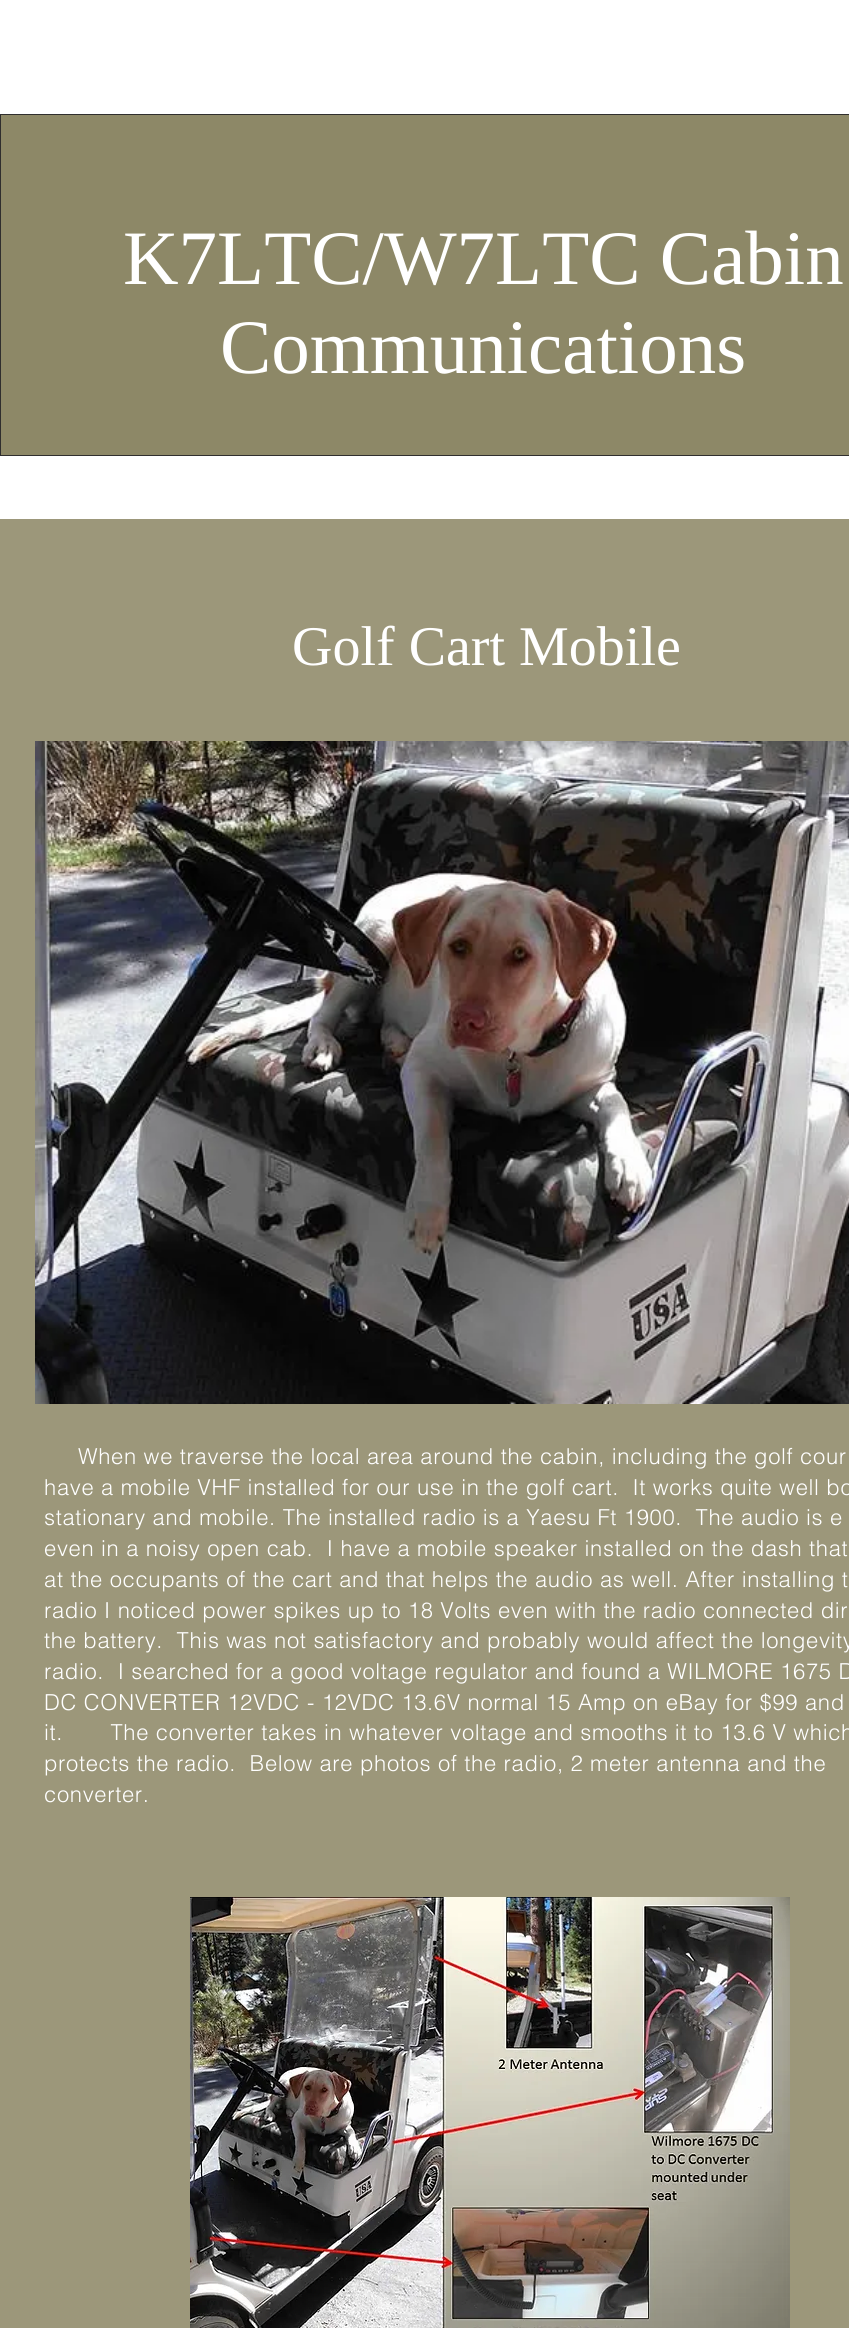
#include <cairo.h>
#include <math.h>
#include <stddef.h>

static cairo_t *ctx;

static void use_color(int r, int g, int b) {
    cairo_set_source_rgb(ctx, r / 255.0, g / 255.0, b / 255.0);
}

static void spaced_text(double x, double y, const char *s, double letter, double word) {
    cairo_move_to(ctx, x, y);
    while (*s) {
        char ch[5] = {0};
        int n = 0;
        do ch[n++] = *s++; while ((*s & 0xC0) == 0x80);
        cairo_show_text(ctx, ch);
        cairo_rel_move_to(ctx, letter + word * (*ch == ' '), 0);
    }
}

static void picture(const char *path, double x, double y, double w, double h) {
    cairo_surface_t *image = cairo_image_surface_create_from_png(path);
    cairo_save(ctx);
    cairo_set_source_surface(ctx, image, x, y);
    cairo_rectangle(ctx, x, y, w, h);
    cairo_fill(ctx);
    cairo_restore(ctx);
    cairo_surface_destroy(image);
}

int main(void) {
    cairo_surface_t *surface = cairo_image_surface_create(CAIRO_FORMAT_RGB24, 849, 2328);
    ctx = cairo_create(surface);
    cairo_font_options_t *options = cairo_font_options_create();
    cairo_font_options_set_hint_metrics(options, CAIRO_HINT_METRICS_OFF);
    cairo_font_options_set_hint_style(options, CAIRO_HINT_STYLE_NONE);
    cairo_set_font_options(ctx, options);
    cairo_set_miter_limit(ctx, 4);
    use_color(255, 255, 255);
    cairo_paint(ctx);
    use_color(141, 136, 103);
    cairo_rectangle(ctx, 0.5, 114.5, 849, 341);
    cairo_fill_preserve(ctx);
    use_color(47, 46, 46);
    cairo_set_line_width(ctx, 1);
    cairo_stroke(ctx);
    cairo_select_font_face(ctx, "Liberation Serif", CAIRO_FONT_SLANT_NORMAL, CAIRO_FONT_WEIGHT_NORMAL);
    cairo_set_font_size(ctx, 77);
    use_color(255, 255, 255);
    cairo_move_to(ctx, 123, 284);
    cairo_show_text(ctx, "K7LTC/W7LTC Cabin");
    cairo_move_to(ctx, 220, 373);
    cairo_show_text(ctx, "Communications");
    use_color(156, 151, 122);
    cairo_rectangle(ctx, 0, 519, 849, 1809);
    cairo_fill(ctx);
    cairo_set_font_size(ctx, 56);
    use_color(255, 255, 255);
    cairo_move_to(ctx, 292, 665);
    cairo_show_text(ctx, "Golf Cart Mobile");
    picture("img1.png", 35, 741, 814, 663);
    cairo_select_font_face(ctx, "helvetica Light", CAIRO_FONT_SLANT_NORMAL, CAIRO_FONT_WEIGHT_NORMAL);
    cairo_set_font_size(ctx, 22);
    spaced_text(78, 1464, "When we traverse the local area around the cabin, including the golf cour", 0.65, 0);
    spaced_text(44, 1495, "have a mobile VHF installed for our use in the golf cart.  It works quite well bo", 0.65, 0);
    spaced_text(44, 1525, "stationary and mobile. The installed radio is a Yaesu Ft 1900.  The audio is e", 0.65, 0);
    spaced_text(44, 1556, "even in a noisy open cab.  I have a mobile speaker installed on the dash that", 0.65, 0);
    spaced_text(44, 1587, "at the occupants of the cart and that helps the audio as well. After installing t", 0.65, 0);
    spaced_text(44, 1618, "radio I noticed power spikes up to 18 Volts even with the radio connected dir", 0.65, 0);
    spaced_text(44, 1648, "the battery.  This was not satisfactory and probably would affect the longevity", 0.65, 0);
    spaced_text(44, 1679, "radio.  I searched for a good voltage regulator and found a WILMORE 1675 D", 0.65, 0);
    spaced_text(44, 1710, "DC CONVERTER 12VDC - 12VDC 13.6V normal 15 Amp on eBay for $99 and", 0.65, 0);
    spaced_text(44, 1740, "it.       The converter takes in whatever voltage and smooths it to 13.6 V which", 0.65, 0);
    spaced_text(44, 1771, "protects the radio.  Below are photos of the radio, 2 meter antenna and the", 0.65, 0);
    spaced_text(44, 1802, "converter.", 0.65, 0);
    picture("img2.png", 190, 1897, 600, 431);
    cairo_surface_write_to_png(surface, "result.png");
    cairo_font_options_destroy(options);
    cairo_destroy(ctx);
    cairo_surface_destroy(surface);
    return 0;
}
